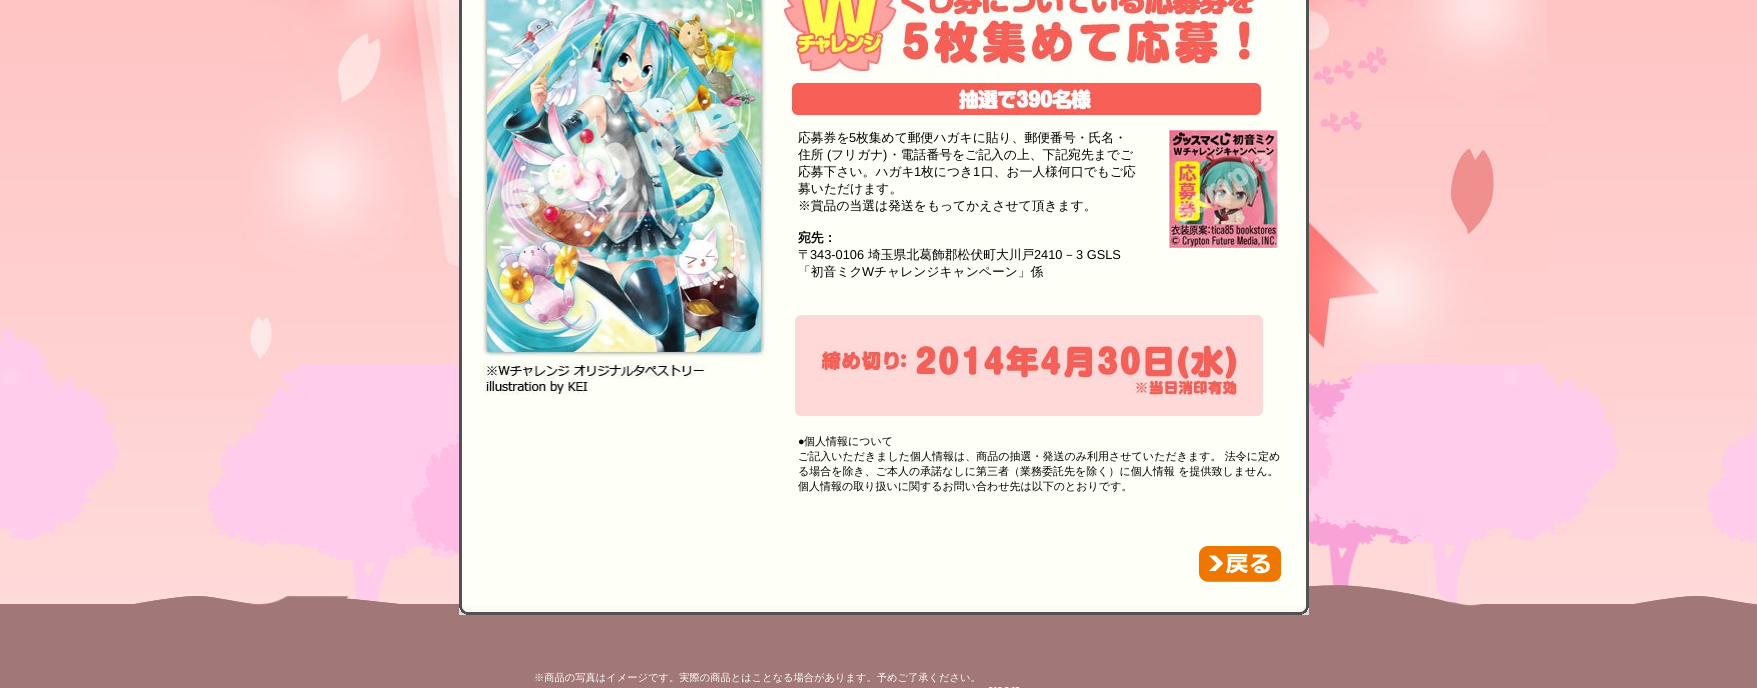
#include <cairo.h>
#include <math.h>
#include <stddef.h>

static cairo_t *ctx;

static void use_color(int r, int g, int b) {
    cairo_set_source_rgb(ctx, r / 255.0, g / 255.0, b / 255.0);
}

static void picture(const char *path, double x, double y, double w, double h) {
    cairo_surface_t *image = cairo_image_surface_create_from_png(path);
    cairo_save(ctx);
    cairo_set_source_surface(ctx, image, x, y);
    cairo_rectangle(ctx, x, y, w, h);
    cairo_fill(ctx);
    cairo_restore(ctx);
    cairo_surface_destroy(image);
}

int main(void) {
    cairo_surface_t *surface = cairo_image_surface_create(CAIRO_FORMAT_RGB24, 1757, 688);
    ctx = cairo_create(surface);
    cairo_font_options_t *options = cairo_font_options_create();
    cairo_font_options_set_hint_metrics(options, CAIRO_HINT_METRICS_OFF);
    cairo_font_options_set_hint_style(options, CAIRO_HINT_STYLE_NONE);
    cairo_set_font_options(ctx, options);
    cairo_set_miter_limit(ctx, 4);
    use_color(255, 255, 255);
    cairo_paint(ctx);
    picture("img1.png", 0, 0, 1757, 607);
    picture("img2.png", 0, 327, 1757, 361);
    picture("img3.png", 242, 0, 1305, 364);
    picture("img4.png", 459, 0, 850, 605);
    picture("img5.png", 459, 605, 850, 10);
    picture("img6.png", 483, 0, 285, 395);
    picture("img7.png", 783, 0, 478, 115);
    picture("img8.png", 1169, 130, 109, 118);
    cairo_select_font_face(ctx, "WenQuanYi Zen Hei Medium", CAIRO_FONT_SLANT_NORMAL, CAIRO_FONT_WEIGHT_NORMAL);
    cairo_set_font_size(ctx, 12.8);
    use_color(0, 0, 0);
    cairo_move_to(ctx, 798, 142);
    cairo_show_text(ctx, "応募券を");
    cairo_select_font_face(ctx, "Liberation Sans", CAIRO_FONT_SLANT_NORMAL, CAIRO_FONT_WEIGHT_NORMAL);
    cairo_move_to(ctx, 849, 142);
    cairo_show_text(ctx, "5");
    cairo_select_font_face(ctx, "WenQuanYi Zen Hei Medium", CAIRO_FONT_SLANT_NORMAL, CAIRO_FONT_WEIGHT_NORMAL);
    cairo_move_to(ctx, 856, 142);
    cairo_show_text(ctx, "枚集めて郵便ハガキに貼り、郵便番号・氏名・");
    cairo_move_to(ctx, 798, 159);
    cairo_show_text(ctx, "住所");
    cairo_select_font_face(ctx, "Liberation Sans", CAIRO_FONT_SLANT_NORMAL, CAIRO_FONT_WEIGHT_NORMAL);
    cairo_move_to(ctx, 827, 159);
    cairo_show_text(ctx, "(");
    cairo_select_font_face(ctx, "WenQuanYi Zen Hei Medium", CAIRO_FONT_SLANT_NORMAL, CAIRO_FONT_WEIGHT_NORMAL);
    cairo_move_to(ctx, 831, 159);
    cairo_show_text(ctx, "フリガナ");
    cairo_select_font_face(ctx, "Liberation Sans", CAIRO_FONT_SLANT_NORMAL, CAIRO_FONT_WEIGHT_NORMAL);
    cairo_move_to(ctx, 883, 159);
    cairo_show_text(ctx, ")");
    cairo_select_font_face(ctx, "WenQuanYi Zen Hei Medium", CAIRO_FONT_SLANT_NORMAL, CAIRO_FONT_WEIGHT_NORMAL);
    cairo_move_to(ctx, 888, 159);
    cairo_show_text(ctx, "・電話番号をご記入の上、下記宛先までご");
    cairo_move_to(ctx, 798, 176);
    cairo_show_text(ctx, "応募下さい。ハガキ");
    cairo_select_font_face(ctx, "Liberation Sans", CAIRO_FONT_SLANT_NORMAL, CAIRO_FONT_WEIGHT_NORMAL);
    cairo_move_to(ctx, 914, 176);
    cairo_show_text(ctx, "1");
    cairo_select_font_face(ctx, "WenQuanYi Zen Hei Medium", CAIRO_FONT_SLANT_NORMAL, CAIRO_FONT_WEIGHT_NORMAL);
    cairo_move_to(ctx, 921, 176);
    cairo_show_text(ctx, "枚につき");
    cairo_select_font_face(ctx, "Liberation Sans", CAIRO_FONT_SLANT_NORMAL, CAIRO_FONT_WEIGHT_NORMAL);
    cairo_move_to(ctx, 973, 176);
    cairo_show_text(ctx, "1");
    cairo_select_font_face(ctx, "WenQuanYi Zen Hei Medium", CAIRO_FONT_SLANT_NORMAL, CAIRO_FONT_WEIGHT_NORMAL);
    cairo_move_to(ctx, 981, 176);
    cairo_show_text(ctx, "口、お一人様何口でもご応");
    cairo_move_to(ctx, 798, 193);
    cairo_show_text(ctx, "募いただけます。");
    cairo_move_to(ctx, 798, 210);
    cairo_show_text(ctx, "※賞品の当選は発送をもってかえさせて頂きます。");
    cairo_select_font_face(ctx, "WenQuanYi Zen Hei", CAIRO_FONT_SLANT_NORMAL, CAIRO_FONT_WEIGHT_BOLD);
    cairo_move_to(ctx, 798, 242);
    cairo_show_text(ctx, "宛先：");
    cairo_select_font_face(ctx, "WenQuanYi Zen Hei Medium", CAIRO_FONT_SLANT_NORMAL, CAIRO_FONT_WEIGHT_NORMAL);
    cairo_move_to(ctx, 798, 259);
    cairo_show_text(ctx, "〒");
    cairo_select_font_face(ctx, "Liberation Sans", CAIRO_FONT_SLANT_NORMAL, CAIRO_FONT_WEIGHT_NORMAL);
    cairo_move_to(ctx, 810, 259);
    cairo_show_text(ctx, "343-0106");
    cairo_select_font_face(ctx, "WenQuanYi Zen Hei Medium", CAIRO_FONT_SLANT_NORMAL, CAIRO_FONT_WEIGHT_NORMAL);
    cairo_move_to(ctx, 868, 259);
    cairo_show_text(ctx, "埼玉県北葛飾郡松伏町大川戸");
    cairo_select_font_face(ctx, "Liberation Sans", CAIRO_FONT_SLANT_NORMAL, CAIRO_FONT_WEIGHT_NORMAL);
    cairo_move_to(ctx, 1034, 259);
    cairo_show_text(ctx, "2410");
    cairo_select_font_face(ctx, "WenQuanYi Zen Hei Medium", CAIRO_FONT_SLANT_NORMAL, CAIRO_FONT_WEIGHT_NORMAL);
    cairo_move_to(ctx, 1063, 259);
    cairo_show_text(ctx, "－");
    cairo_select_font_face(ctx, "Liberation Sans", CAIRO_FONT_SLANT_NORMAL, CAIRO_FONT_WEIGHT_NORMAL);
    cairo_move_to(ctx, 1076, 259);
    cairo_show_text(ctx, "3 GSLS");
    cairo_select_font_face(ctx, "WenQuanYi Zen Hei Medium", CAIRO_FONT_SLANT_NORMAL, CAIRO_FONT_WEIGHT_NORMAL);
    cairo_move_to(ctx, 798, 276);
    cairo_show_text(ctx, "「初音ミク");
    cairo_select_font_face(ctx, "Liberation Sans", CAIRO_FONT_SLANT_NORMAL, CAIRO_FONT_WEIGHT_NORMAL);
    cairo_move_to(ctx, 862, 276);
    cairo_show_text(ctx, "W");
    cairo_select_font_face(ctx, "WenQuanYi Zen Hei Medium", CAIRO_FONT_SLANT_NORMAL, CAIRO_FONT_WEIGHT_NORMAL);
    cairo_move_to(ctx, 874, 276);
    cairo_show_text(ctx, "チャレンジキャンペーン」係");
    picture("img9.png", 795, 315, 468, 101);
    cairo_select_font_face(ctx, "Liberation Sans", CAIRO_FONT_SLANT_NORMAL, CAIRO_FONT_WEIGHT_NORMAL);
    cairo_set_font_size(ctx, 11);
    cairo_move_to(ctx, 798, 445);
    cairo_show_text(ctx, "●");
    cairo_select_font_face(ctx, "WenQuanYi Zen Hei Medium", CAIRO_FONT_SLANT_NORMAL, CAIRO_FONT_WEIGHT_NORMAL);
    cairo_move_to(ctx, 804, 445);
    cairo_show_text(ctx, "個人情報について");
    cairo_move_to(ctx, 798, 460);
    cairo_show_text(ctx, "ご記入いただきました個人情報は、商品の抽選・発送のみ利用させていただきます。 法令に定め");
    cairo_move_to(ctx, 798, 475);
    cairo_show_text(ctx, "る場合を除き、ご本人の承諾なしに第三者（業務委託先を除く）に個人情報 を提供致しません。");
    cairo_move_to(ctx, 798, 490);
    cairo_show_text(ctx, "個人情報の取り扱いに関するお問い合わせ先は以下のとおりです。");
    picture("img10.png", 1199, 546, 82, 36);
    cairo_set_font_size(ctx, 10.25);
    use_color(255, 255, 255);
    cairo_move_to(ctx, 534, 681);
    cairo_show_text(ctx, "※商品の写真はイメージです。実際の商品とはことなる場合があります。予めご了承ください。");
    picture("img11.png", 988, 686, 32, 2);
    cairo_surface_write_to_png(surface, "result.png");
    cairo_font_options_destroy(options);
    cairo_destroy(ctx);
    cairo_surface_destroy(surface);
    return 0;
}
